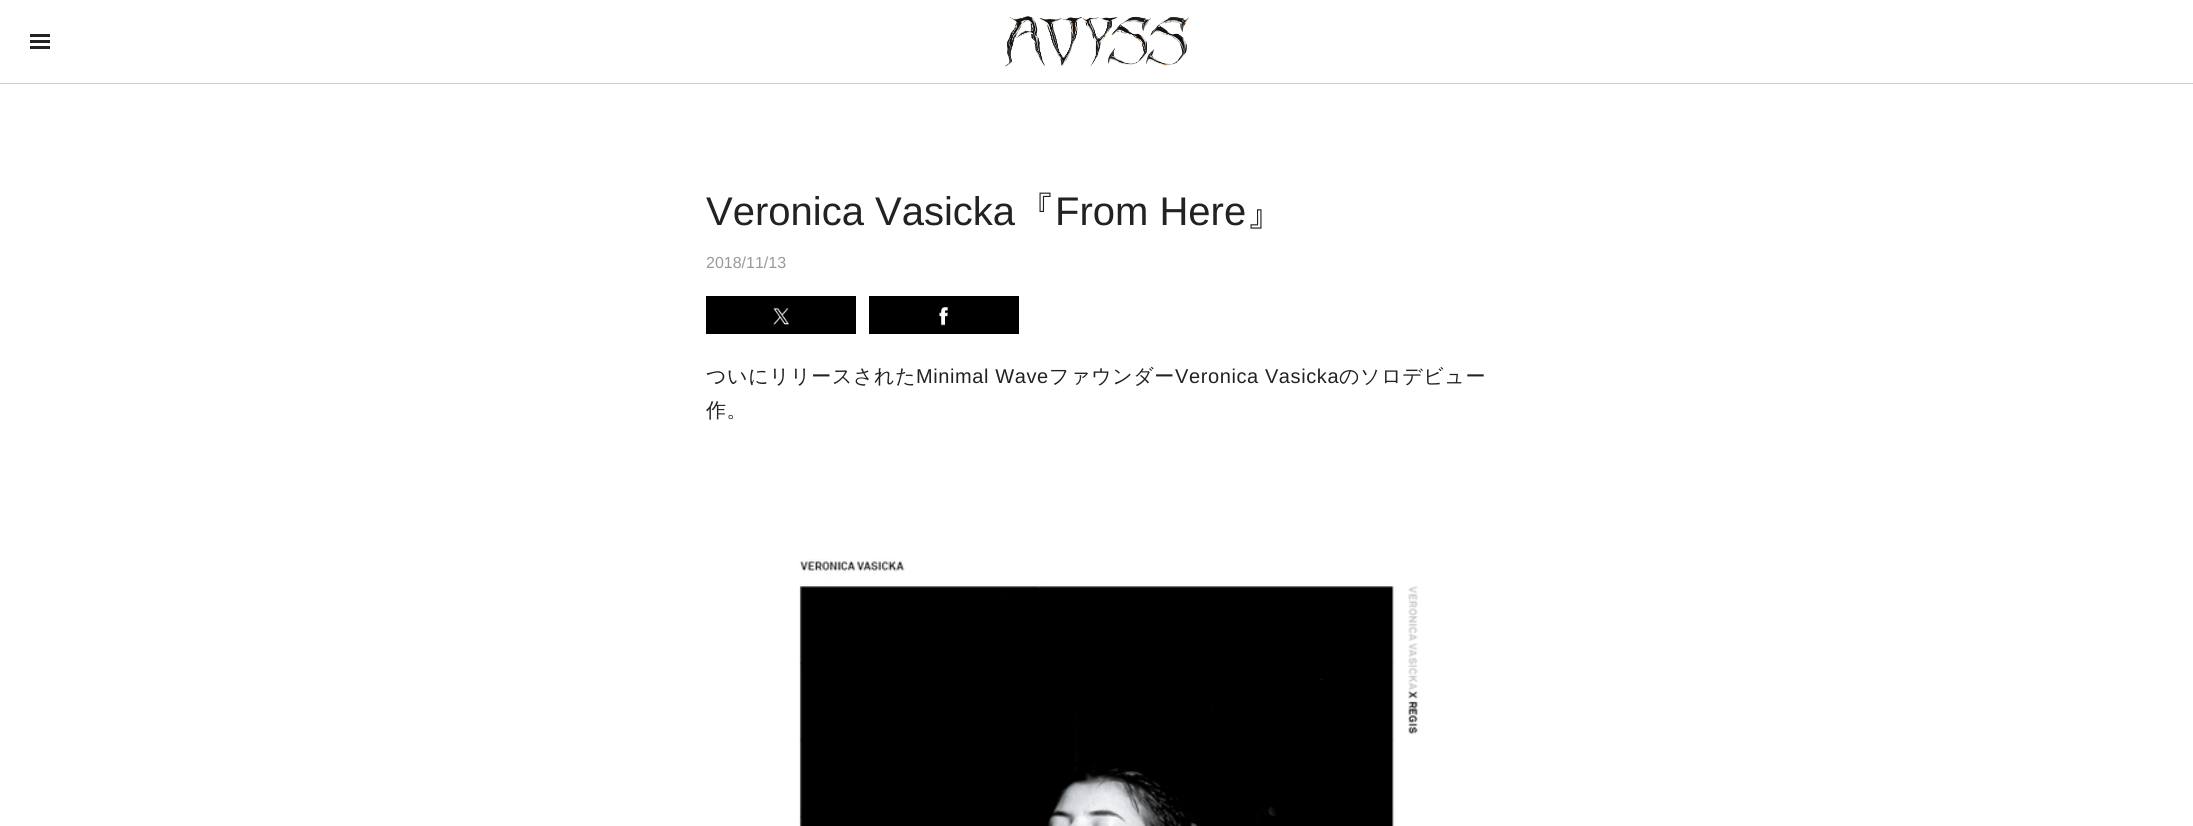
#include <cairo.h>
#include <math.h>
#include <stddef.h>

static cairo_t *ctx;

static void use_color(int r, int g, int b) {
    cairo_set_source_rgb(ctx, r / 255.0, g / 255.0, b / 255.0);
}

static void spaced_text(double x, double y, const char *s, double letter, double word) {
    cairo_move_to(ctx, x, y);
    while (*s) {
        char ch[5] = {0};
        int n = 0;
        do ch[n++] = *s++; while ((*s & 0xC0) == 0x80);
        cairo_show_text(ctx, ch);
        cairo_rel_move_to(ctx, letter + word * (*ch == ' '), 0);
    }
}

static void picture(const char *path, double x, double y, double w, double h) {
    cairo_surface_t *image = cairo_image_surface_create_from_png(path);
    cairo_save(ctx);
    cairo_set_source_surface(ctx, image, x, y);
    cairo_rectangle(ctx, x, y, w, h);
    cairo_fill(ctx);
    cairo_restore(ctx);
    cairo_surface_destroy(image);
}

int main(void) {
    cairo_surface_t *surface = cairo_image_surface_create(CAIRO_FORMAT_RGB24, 2193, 826);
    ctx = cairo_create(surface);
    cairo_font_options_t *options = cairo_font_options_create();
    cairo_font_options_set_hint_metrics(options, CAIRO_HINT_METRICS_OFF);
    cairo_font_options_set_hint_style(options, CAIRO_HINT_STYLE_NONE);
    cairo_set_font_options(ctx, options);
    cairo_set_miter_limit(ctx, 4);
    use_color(255, 255, 255);
    cairo_paint(ctx);
    use_color(34, 34, 34);
    cairo_rectangle(ctx, 30, 40, 20, 3);
    cairo_fill(ctx);
    cairo_rectangle(ctx, 30, 34, 20, 3);
    cairo_fill(ctx);
    cairo_rectangle(ctx, 30, 46, 20, 3);
    cairo_fill(ctx);
    use_color(204, 204, 204);
    cairo_rectangle(ctx, 0, 83, 2193, 1);
    cairo_fill(ctx);
    picture("img1.png", 1005, 16, 184, 51);
    cairo_select_font_face(ctx, "Liberation Sans", CAIRO_FONT_SLANT_NORMAL, CAIRO_FONT_WEIGHT_NORMAL);
    cairo_set_font_size(ctx, 40);
    use_color(34, 34, 34);
    cairo_move_to(ctx, 706, 225);
    cairo_show_text(ctx, "Veronica Vasicka");
    cairo_select_font_face(ctx, "WenQuanYi Zen Hei Medium", CAIRO_FONT_SLANT_NORMAL, CAIRO_FONT_WEIGHT_NORMAL);
    cairo_move_to(ctx, 1015, 225);
    cairo_show_text(ctx, "『");
    cairo_select_font_face(ctx, "Liberation Sans", CAIRO_FONT_SLANT_NORMAL, CAIRO_FONT_WEIGHT_NORMAL);
    cairo_move_to(ctx, 1055, 225);
    cairo_show_text(ctx, "From Here");
    cairo_select_font_face(ctx, "WenQuanYi Zen Hei Medium", CAIRO_FONT_SLANT_NORMAL, CAIRO_FONT_WEIGHT_NORMAL);
    cairo_move_to(ctx, 1246, 225);
    cairo_show_text(ctx, "』");
    cairo_select_font_face(ctx, "Liberation Sans", CAIRO_FONT_SLANT_NORMAL, CAIRO_FONT_WEIGHT_NORMAL);
    cairo_set_font_size(ctx, 16);
    use_color(153, 153, 153);
    cairo_move_to(ctx, 706, 268);
    cairo_show_text(ctx, "2018/11/13");
    use_color(0, 0, 0);
    cairo_rectangle(ctx, 706, 296, 150, 38);
    cairo_fill(ctx);
    picture("img2.png", 773, 307, 16, 18);
    cairo_rectangle(ctx, 869, 296, 150, 38);
    cairo_fill(ctx);
    picture("img3.png", 939, 307, 10, 19);
    cairo_select_font_face(ctx, "WenQuanYi Zen Hei Medium", CAIRO_FONT_SLANT_NORMAL, CAIRO_FONT_WEIGHT_NORMAL);
    cairo_set_font_size(ctx, 20);
    use_color(34, 34, 34);
    spaced_text(706, 383, "ついにリリースされた", 0.6, 0);
    cairo_select_font_face(ctx, "Liberation Sans", CAIRO_FONT_SLANT_NORMAL, CAIRO_FONT_WEIGHT_NORMAL);
    spaced_text(916, 383, "Minimal Wave", 0.6, 0);
    cairo_select_font_face(ctx, "WenQuanYi Zen Hei Medium", CAIRO_FONT_SLANT_NORMAL, CAIRO_FONT_WEIGHT_NORMAL);
    spaced_text(1049, 383, "ファウンダー", 0.6, 0);
    cairo_select_font_face(ctx, "Liberation Sans", CAIRO_FONT_SLANT_NORMAL, CAIRO_FONT_WEIGHT_NORMAL);
    spaced_text(1175, 383, "Veronica Vasicka", 0.6, 0);
    cairo_select_font_face(ctx, "WenQuanYi Zen Hei Medium", CAIRO_FONT_SLANT_NORMAL, CAIRO_FONT_WEIGHT_NORMAL);
    spaced_text(1339, 383, "のソロデビュー", 0.6, 0);
    spaced_text(706, 417, "作。", 0.6, 0);
    picture("img4.png", 799, 559, 621, 267);
    cairo_surface_write_to_png(surface, "result.png");
    cairo_font_options_destroy(options);
    cairo_destroy(ctx);
    cairo_surface_destroy(surface);
    return 0;
}
